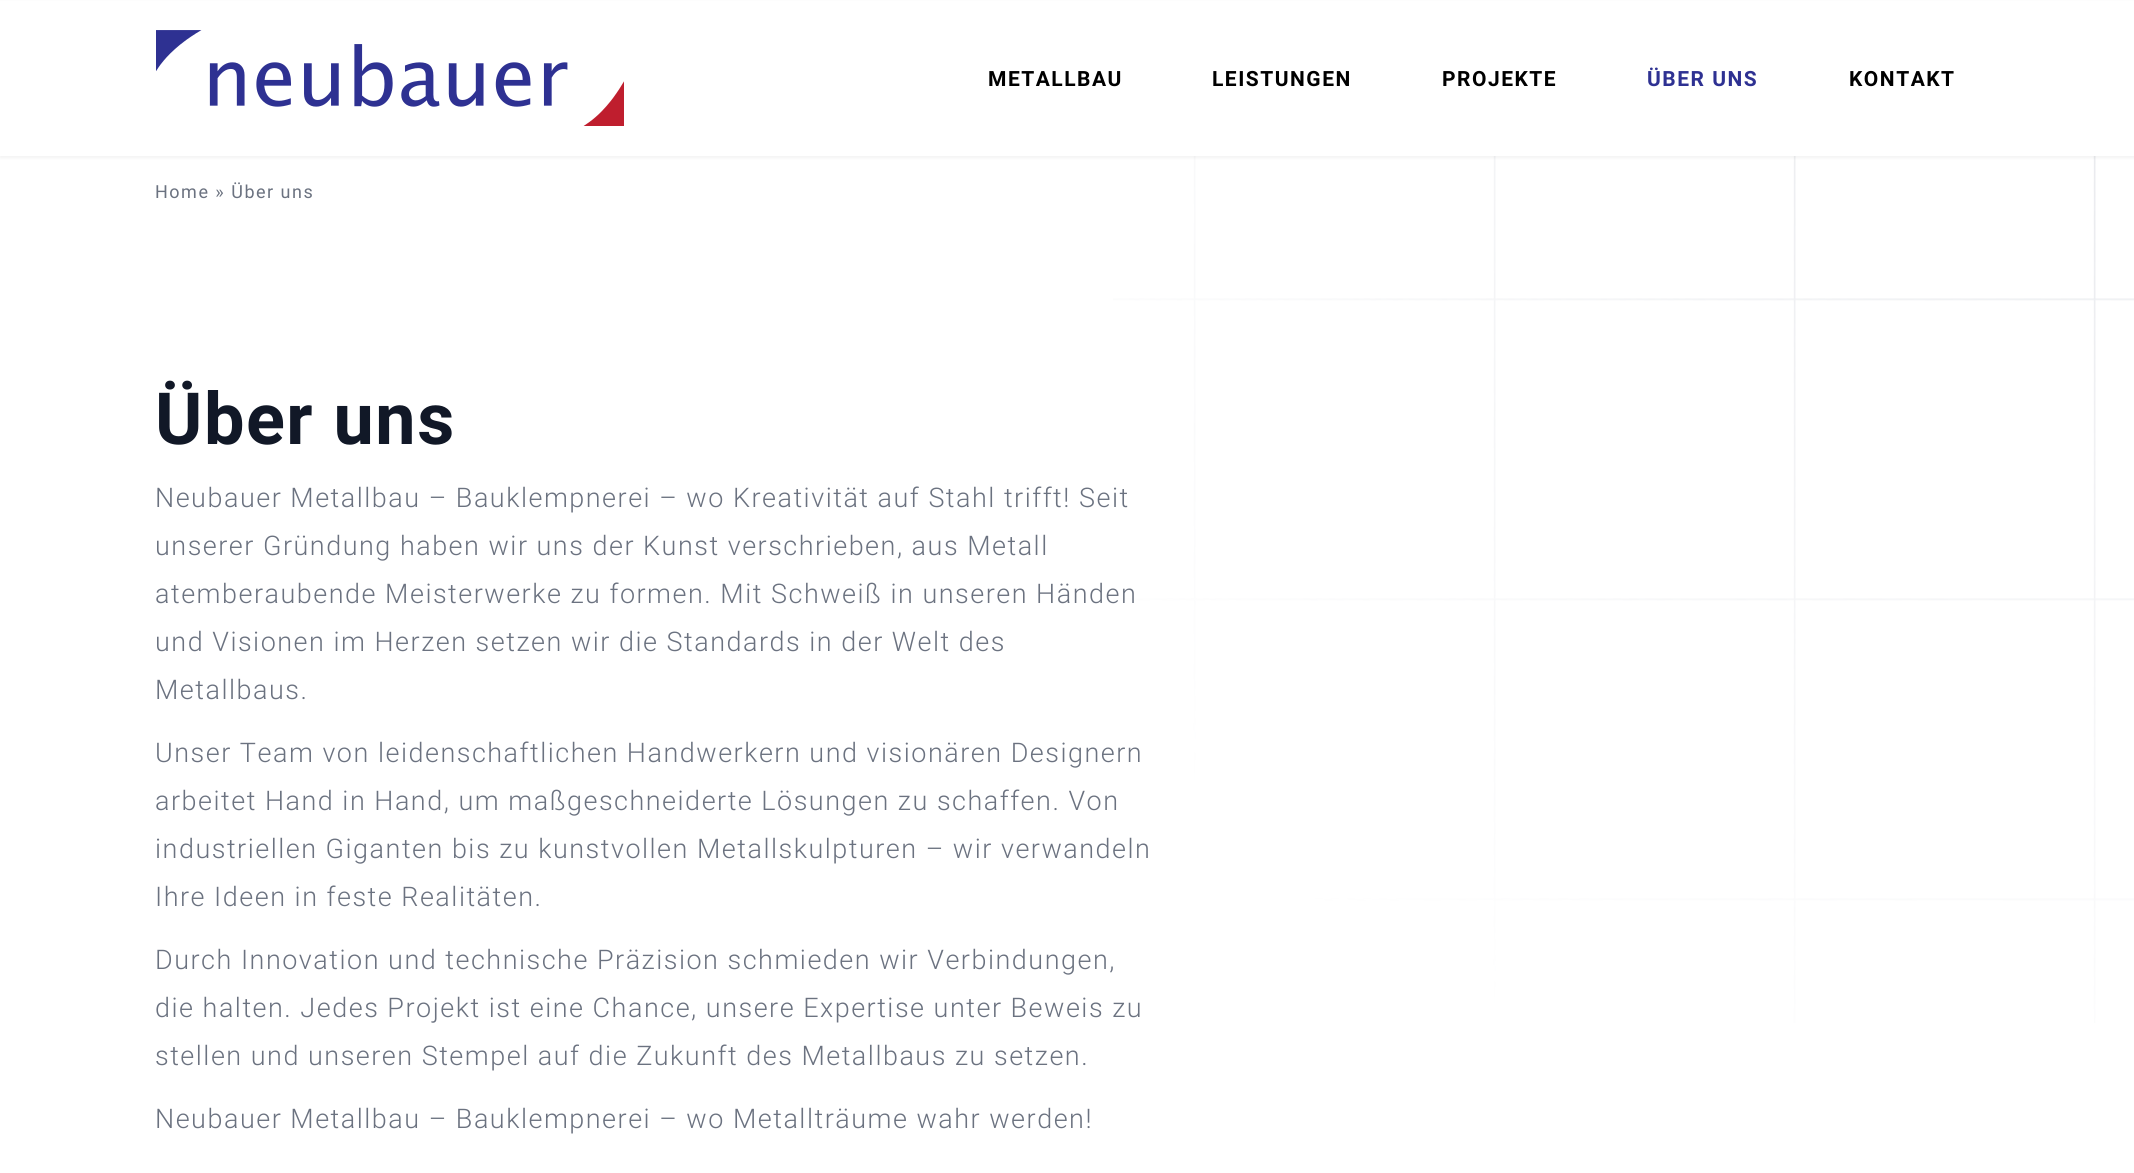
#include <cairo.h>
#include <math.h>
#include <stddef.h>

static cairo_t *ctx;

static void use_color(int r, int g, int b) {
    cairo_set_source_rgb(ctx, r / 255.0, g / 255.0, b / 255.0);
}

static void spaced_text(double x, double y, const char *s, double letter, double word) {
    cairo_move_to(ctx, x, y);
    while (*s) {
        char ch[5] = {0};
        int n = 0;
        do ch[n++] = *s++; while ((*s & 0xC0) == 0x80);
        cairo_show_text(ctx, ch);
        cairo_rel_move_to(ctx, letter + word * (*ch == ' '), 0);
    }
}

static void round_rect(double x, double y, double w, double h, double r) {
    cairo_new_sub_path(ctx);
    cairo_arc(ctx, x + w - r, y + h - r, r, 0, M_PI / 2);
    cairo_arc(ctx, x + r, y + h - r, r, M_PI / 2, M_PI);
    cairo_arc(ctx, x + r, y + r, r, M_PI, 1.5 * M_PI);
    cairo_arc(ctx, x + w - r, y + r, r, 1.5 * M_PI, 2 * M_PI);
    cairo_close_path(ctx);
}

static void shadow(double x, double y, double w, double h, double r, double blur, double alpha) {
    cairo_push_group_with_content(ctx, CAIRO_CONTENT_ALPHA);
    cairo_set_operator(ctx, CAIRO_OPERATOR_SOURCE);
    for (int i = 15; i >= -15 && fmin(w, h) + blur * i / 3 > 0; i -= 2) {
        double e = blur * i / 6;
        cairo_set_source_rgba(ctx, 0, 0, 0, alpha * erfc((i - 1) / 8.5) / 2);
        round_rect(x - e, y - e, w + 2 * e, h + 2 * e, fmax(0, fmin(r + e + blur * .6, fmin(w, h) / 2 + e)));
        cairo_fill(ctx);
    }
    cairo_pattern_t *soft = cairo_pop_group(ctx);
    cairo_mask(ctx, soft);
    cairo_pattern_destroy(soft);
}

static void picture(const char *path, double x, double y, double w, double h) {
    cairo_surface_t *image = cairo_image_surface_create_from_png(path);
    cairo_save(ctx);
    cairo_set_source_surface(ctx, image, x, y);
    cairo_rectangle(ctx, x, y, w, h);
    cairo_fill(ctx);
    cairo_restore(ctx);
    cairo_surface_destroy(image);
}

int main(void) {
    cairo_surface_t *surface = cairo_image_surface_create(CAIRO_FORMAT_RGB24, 2134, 1173);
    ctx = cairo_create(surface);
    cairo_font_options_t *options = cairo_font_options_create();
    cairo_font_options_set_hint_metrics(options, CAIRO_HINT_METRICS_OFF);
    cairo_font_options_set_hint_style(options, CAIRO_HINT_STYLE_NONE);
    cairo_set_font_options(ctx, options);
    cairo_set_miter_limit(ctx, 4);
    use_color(255, 255, 255);
    cairo_paint(ctx);
    picture("img2.png", 1113, 156, 1021, 867);
    use_color(0, 0, 0);
    shadow(0, 2, 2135, 156, 0, 1.5, 0.05);
    use_color(255, 255, 255);
    cairo_rectangle(ctx, 0, 1, 2134, 155);
    cairo_fill(ctx);
    picture("img1.png", 156, 30, 468, 96);
    cairo_select_font_face(ctx, "Roboto", CAIRO_FONT_SLANT_NORMAL, CAIRO_FONT_WEIGHT_BOLD);
    cairo_set_font_size(ctx, 21);
    use_color(0, 0, 0);
    spaced_text(988, 86, "METALLBAU", 1.5, 0);
    spaced_text(1212, 86, "LEISTUNGEN", 1.5, 0);
    spaced_text(1442, 86, "PROJEKTE", 1.5, 0);
    use_color(46, 49, 146);
    spaced_text(1647, 86, "ÜBER UNS", 1.5, 0);
    use_color(0, 0, 0);
    spaced_text(1849, 86, "KONTAKT", 1.5, 0);
    cairo_select_font_face(ctx, "Roboto", CAIRO_FONT_SLANT_NORMAL, CAIRO_FONT_WEIGHT_NORMAL);
    cairo_set_font_size(ctx, 18);
    use_color(107, 114, 128);
    spaced_text(155, 198, "Home » Über uns", 1.5, 0);
    cairo_select_font_face(ctx, "Roboto", CAIRO_FONT_SLANT_NORMAL, CAIRO_FONT_WEIGHT_BOLD);
    cairo_set_font_size(ctx, 72);
    use_color(17, 24, 39);
    spaced_text(155, 444, "Über uns", 1.5, 0);
    cairo_select_font_face(ctx, "Roboto Light", CAIRO_FONT_SLANT_NORMAL, CAIRO_FONT_WEIGHT_NORMAL);
    cairo_set_font_size(ctx, 27);
    use_color(107, 114, 128);
    spaced_text(155, 507, "Neubauer Metallbau – Bauklempnerei – wo Kreativität auf Stahl trifft! Seit", 1.5, 0);
    spaced_text(155, 555, "unserer Gründung haben wir uns der Kunst verschrieben, aus Metall", 1.5, 0);
    spaced_text(155, 603, "atemberaubende Meisterwerke zu formen. Mit Schweiß in unseren Händen", 1.5, 0);
    spaced_text(155, 651, "und Visionen im Herzen setzen wir die Standards in der Welt des", 1.5, 0);
    spaced_text(155, 699, "Metallbaus.", 1.5, 0);
    spaced_text(155, 762, "Unser Team von leidenschaftlichen Handwerkern und visionären Designern", 1.5, 0);
    spaced_text(155, 810, "arbeitet Hand in Hand, um maßgeschneiderte Lösungen zu schaffen. Von", 1.5, 0);
    spaced_text(155, 858, "industriellen Giganten bis zu kunstvollen Metallskulpturen – wir verwandeln", 1.5, 0);
    spaced_text(155, 906, "Ihre Ideen in feste Realitäten.", 1.5, 0);
    spaced_text(155, 969, "Durch Innovation und technische Präzision schmieden wir Verbindungen,", 1.5, 0);
    spaced_text(155, 1017, "die halten. Jedes Projekt ist eine Chance, unsere Expertise unter Beweis zu", 1.5, 0);
    spaced_text(155, 1065, "stellen und unseren Stempel auf die Zukunft des Metallbaus zu setzen.", 1.5, 0);
    spaced_text(155, 1128, "Neubauer Metallbau – Bauklempnerei – wo Metallträume wahr werden!", 1.5, 0);
    cairo_surface_write_to_png(surface, "result.png");
    cairo_font_options_destroy(options);
    cairo_destroy(ctx);
    cairo_surface_destroy(surface);
    return 0;
}
